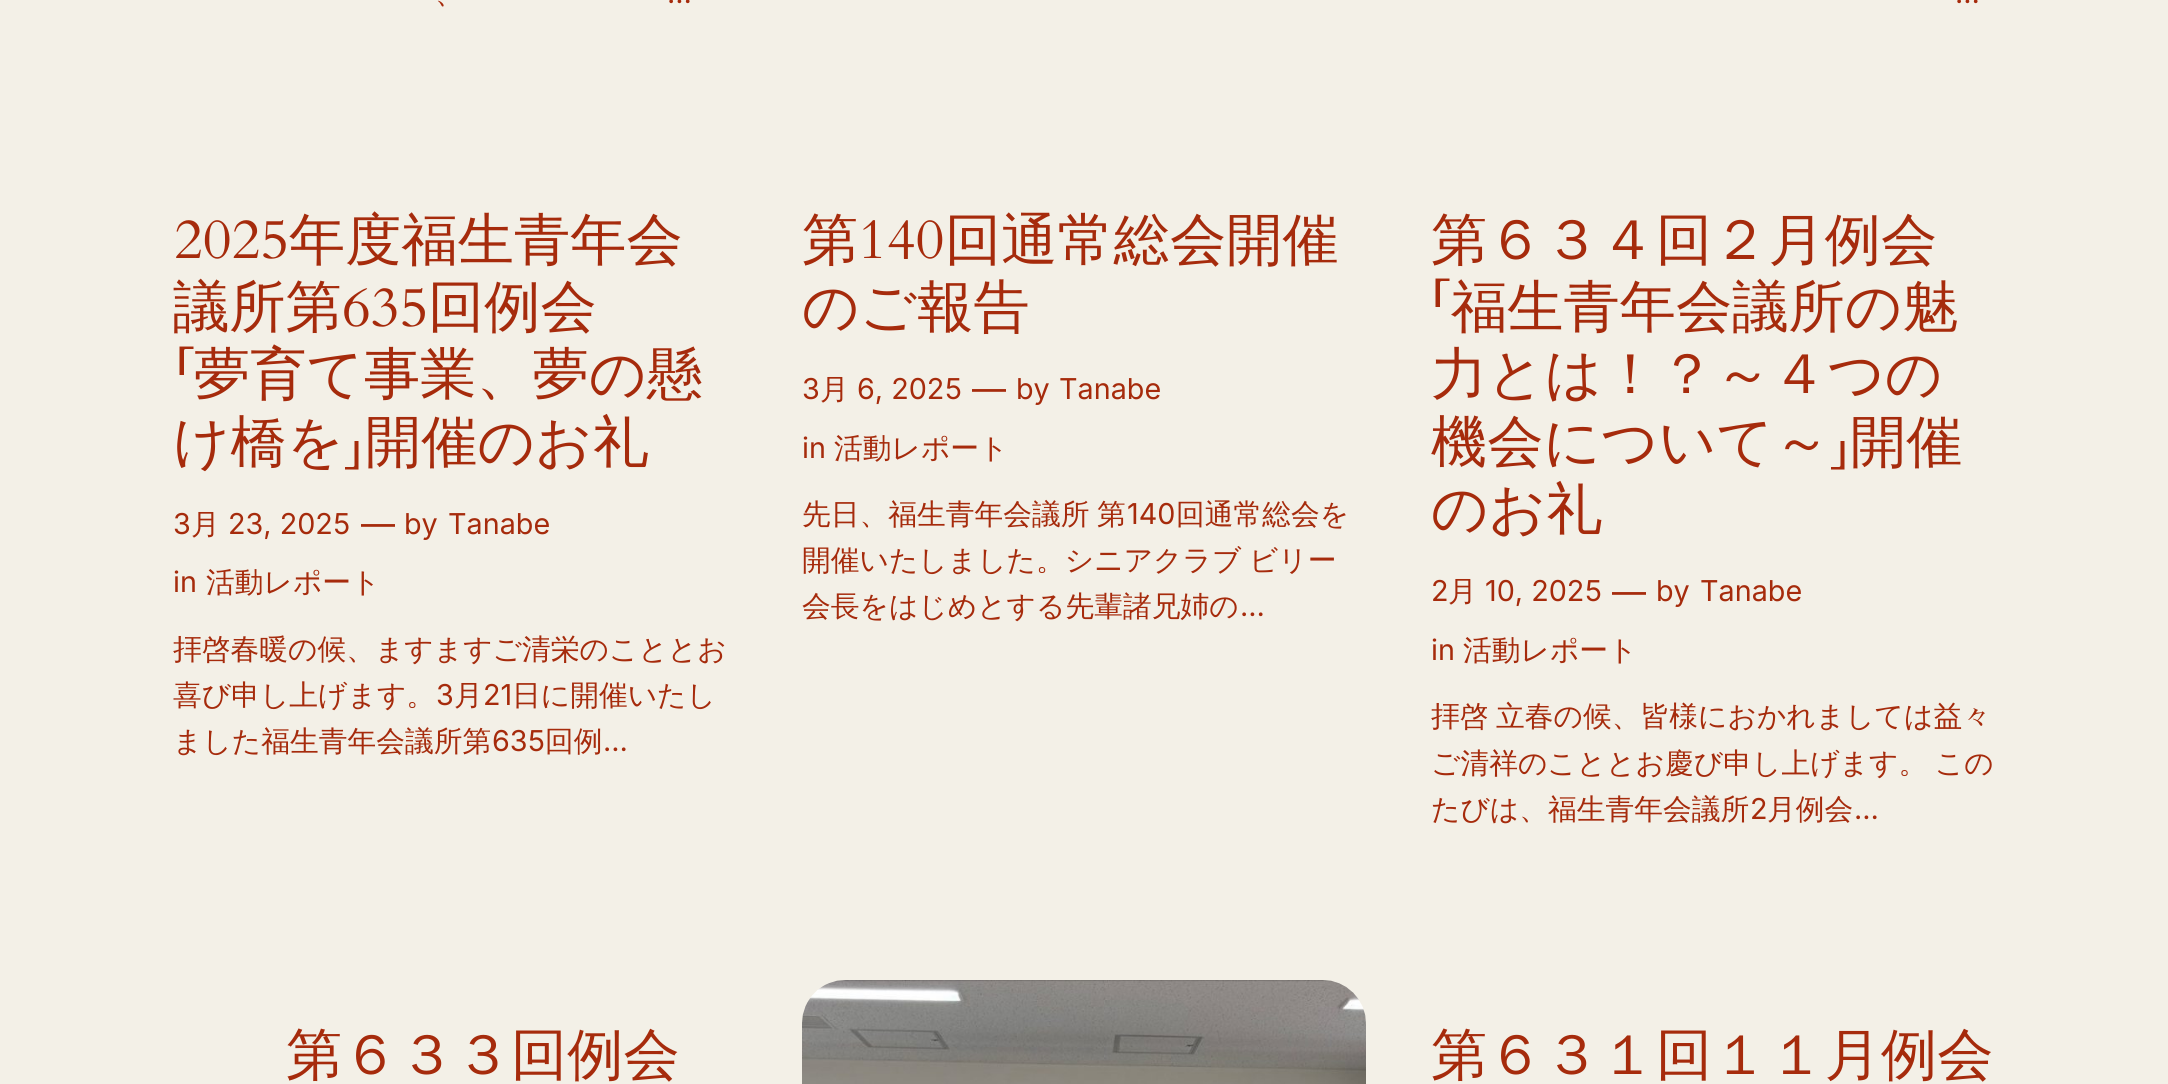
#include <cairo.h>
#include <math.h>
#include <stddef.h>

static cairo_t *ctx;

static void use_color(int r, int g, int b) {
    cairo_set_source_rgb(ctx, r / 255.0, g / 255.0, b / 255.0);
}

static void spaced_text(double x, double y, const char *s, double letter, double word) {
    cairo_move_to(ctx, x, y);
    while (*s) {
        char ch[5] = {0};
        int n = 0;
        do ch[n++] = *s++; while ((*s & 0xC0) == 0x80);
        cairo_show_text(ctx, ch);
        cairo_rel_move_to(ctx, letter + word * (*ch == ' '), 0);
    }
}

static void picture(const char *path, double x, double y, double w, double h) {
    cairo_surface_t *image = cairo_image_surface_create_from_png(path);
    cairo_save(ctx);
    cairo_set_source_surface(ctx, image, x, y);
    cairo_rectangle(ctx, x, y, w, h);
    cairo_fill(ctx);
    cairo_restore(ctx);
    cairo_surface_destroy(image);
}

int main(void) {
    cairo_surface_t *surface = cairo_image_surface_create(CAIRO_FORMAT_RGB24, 2168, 1084);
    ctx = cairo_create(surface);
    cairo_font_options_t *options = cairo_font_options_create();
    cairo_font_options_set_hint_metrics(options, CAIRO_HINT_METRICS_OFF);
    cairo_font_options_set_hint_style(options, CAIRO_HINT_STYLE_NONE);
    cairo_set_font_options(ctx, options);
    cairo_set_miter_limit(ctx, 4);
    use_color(243, 240, 231);
    cairo_paint(ctx);
    cairo_select_font_face(ctx, "WenQuanYi Zen Hei Medium", CAIRO_FONT_SLANT_NORMAL, CAIRO_FONT_WEIGHT_NORMAL);
    cairo_set_font_size(ctx, 28.75);
    use_color(166, 43, 12);
    cairo_move_to(ctx, 435, 3);
    cairo_show_text(ctx, "、");
    cairo_select_font_face(ctx, "Inter", CAIRO_FONT_SLANT_NORMAL, CAIRO_FONT_WEIGHT_NORMAL);
    cairo_move_to(ctx, 667, 3);
    cairo_show_text(ctx, "…");
    cairo_move_to(ctx, 1955, 3);
    cairo_show_text(ctx, "…");
    picture("img1.png", 176, 220, 110, 39);
    cairo_select_font_face(ctx, "WenQuanYi Zen Hei Medium", CAIRO_FONT_SLANT_NORMAL, CAIRO_FONT_WEIGHT_NORMAL);
    cairo_set_font_size(ctx, 56.25);
    cairo_move_to(ctx, 289, 259);
    cairo_show_text(ctx, "年度福生青年会");
    cairo_move_to(ctx, 173, 326);
    cairo_show_text(ctx, "議所第");
    picture("img2.png", 344, 288, 81, 39);
    cairo_move_to(ctx, 428, 326);
    cairo_show_text(ctx, "回例会");
    cairo_move_to(ctx, 194, 393);
    cairo_show_text(ctx, "夢育て事業、夢の懸");
    cairo_new_path(ctx);
    cairo_move_to(ctx, 193.5, 346.5);
    cairo_line_to(ctx, 193.5, 349);
    cairo_line_to(ctx, 186, 349);
    cairo_curve_to(ctx, 184.5, 349, 184, 349.5, 184, 351);
    cairo_line_to(ctx, 184, 375);
    cairo_line_to(ctx, 179.5, 375);
    cairo_line_to(ctx, 179.5, 346.5);
    cairo_close_path(ctx);
    cairo_fill(ctx);
    cairo_move_to(ctx, 173, 461);
    cairo_show_text(ctx, "け橋を");
    cairo_new_path(ctx);
    cairo_move_to(ctx, 352.5, 467);
    cairo_curve_to(ctx, 354, 467, 354.5, 466.5, 354.5, 465);
    cairo_line_to(ctx, 354.5, 441);
    cairo_line_to(ctx, 358.5, 441);
    cairo_line_to(ctx, 358.5, 469.5);
    cairo_line_to(ctx, 345, 469.5);
    cairo_line_to(ctx, 345, 467);
    cairo_close_path(ctx);
    cairo_fill(ctx);
    cairo_move_to(ctx, 365, 461);
    cairo_show_text(ctx, "開催のお礼");
    cairo_select_font_face(ctx, "Inter", CAIRO_FONT_SLANT_NORMAL, CAIRO_FONT_WEIGHT_NORMAL);
    cairo_set_font_size(ctx, 28.75);
    cairo_move_to(ctx, 173, 534);
    cairo_show_text(ctx, "3");
    cairo_select_font_face(ctx, "WenQuanYi Zen Hei Medium", CAIRO_FONT_SLANT_NORMAL, CAIRO_FONT_WEIGHT_NORMAL);
    cairo_move_to(ctx, 191, 534);
    cairo_show_text(ctx, "月");
    cairo_select_font_face(ctx, "Inter", CAIRO_FONT_SLANT_NORMAL, CAIRO_FONT_WEIGHT_NORMAL);
    cairo_move_to(ctx, 228, 534);
    cairo_show_text(ctx, "23, 2025");
    cairo_set_font_size(ctx, 34);
    cairo_move_to(ctx, 361, 536);
    cairo_show_text(ctx, "—");
    cairo_set_font_size(ctx, 28.75);
    cairo_move_to(ctx, 404, 534);
    cairo_show_text(ctx, "by");
    cairo_move_to(ctx, 448, 534);
    cairo_show_text(ctx, "Tanabe");
    cairo_move_to(ctx, 173, 592);
    cairo_show_text(ctx, "in");
    cairo_select_font_face(ctx, "WenQuanYi Zen Hei Medium", CAIRO_FONT_SLANT_NORMAL, CAIRO_FONT_WEIGHT_NORMAL);
    cairo_move_to(ctx, 206, 592);
    cairo_show_text(ctx, "活動レポート");
    cairo_move_to(ctx, 173, 659);
    cairo_show_text(ctx, "拝啓春暖の候、ますますご清栄のこととお");
    cairo_move_to(ctx, 173, 705);
    cairo_show_text(ctx, "喜び申し上げます。");
    cairo_select_font_face(ctx, "Inter", CAIRO_FONT_SLANT_NORMAL, CAIRO_FONT_WEIGHT_NORMAL);
    cairo_move_to(ctx, 436, 705);
    cairo_show_text(ctx, "3");
    cairo_select_font_face(ctx, "WenQuanYi Zen Hei Medium", CAIRO_FONT_SLANT_NORMAL, CAIRO_FONT_WEIGHT_NORMAL);
    cairo_move_to(ctx, 454, 705);
    cairo_show_text(ctx, "月");
    cairo_select_font_face(ctx, "Inter", CAIRO_FONT_SLANT_NORMAL, CAIRO_FONT_WEIGHT_NORMAL);
    cairo_move_to(ctx, 483, 705);
    cairo_show_text(ctx, "21");
    cairo_select_font_face(ctx, "WenQuanYi Zen Hei Medium", CAIRO_FONT_SLANT_NORMAL, CAIRO_FONT_WEIGHT_NORMAL);
    cairo_move_to(ctx, 512, 705);
    cairo_show_text(ctx, "日に開催いたし");
    cairo_move_to(ctx, 173, 751);
    cairo_show_text(ctx, "ました福生青年会議所第");
    cairo_select_font_face(ctx, "Inter", CAIRO_FONT_SLANT_NORMAL, CAIRO_FONT_WEIGHT_NORMAL);
    cairo_move_to(ctx, 492, 751);
    cairo_show_text(ctx, "635");
    cairo_select_font_face(ctx, "WenQuanYi Zen Hei Medium", CAIRO_FONT_SLANT_NORMAL, CAIRO_FONT_WEIGHT_NORMAL);
    cairo_move_to(ctx, 545, 751);
    cairo_show_text(ctx, "回例");
    cairo_select_font_face(ctx, "Inter", CAIRO_FONT_SLANT_NORMAL, CAIRO_FONT_WEIGHT_NORMAL);
    cairo_move_to(ctx, 603, 751);
    cairo_show_text(ctx, "…");
    cairo_select_font_face(ctx, "WenQuanYi Zen Hei Medium", CAIRO_FONT_SLANT_NORMAL, CAIRO_FONT_WEIGHT_NORMAL);
    cairo_set_font_size(ctx, 56.25);
    cairo_move_to(ctx, 802, 259);
    cairo_show_text(ctx, "第");
    picture("img3.png", 863, 220, 80, 39);
    cairo_move_to(ctx, 945, 259);
    cairo_show_text(ctx, "回通常総会開催");
    cairo_move_to(ctx, 802, 326);
    cairo_show_text(ctx, "のご報告");
    cairo_select_font_face(ctx, "Inter", CAIRO_FONT_SLANT_NORMAL, CAIRO_FONT_WEIGHT_NORMAL);
    cairo_set_font_size(ctx, 28.75);
    cairo_move_to(ctx, 802, 399);
    cairo_show_text(ctx, "3");
    cairo_select_font_face(ctx, "WenQuanYi Zen Hei Medium", CAIRO_FONT_SLANT_NORMAL, CAIRO_FONT_WEIGHT_NORMAL);
    cairo_move_to(ctx, 820, 399);
    cairo_show_text(ctx, "月");
    cairo_select_font_face(ctx, "Inter", CAIRO_FONT_SLANT_NORMAL, CAIRO_FONT_WEIGHT_NORMAL);
    cairo_move_to(ctx, 857, 399);
    cairo_show_text(ctx, "6, 2025");
    cairo_set_font_size(ctx, 34);
    cairo_move_to(ctx, 972, 401);
    cairo_show_text(ctx, "—");
    cairo_set_font_size(ctx, 28.75);
    cairo_move_to(ctx, 1016, 399);
    cairo_show_text(ctx, "by");
    cairo_move_to(ctx, 1059, 399);
    cairo_show_text(ctx, "Tanabe");
    cairo_move_to(ctx, 802, 458);
    cairo_show_text(ctx, "in");
    cairo_select_font_face(ctx, "WenQuanYi Zen Hei Medium", CAIRO_FONT_SLANT_NORMAL, CAIRO_FONT_WEIGHT_NORMAL);
    cairo_move_to(ctx, 834, 458);
    cairo_show_text(ctx, "活動レポート");
    spaced_text(802, 524, "先日、福生青年会議所 第", 0, -1);
    cairo_select_font_face(ctx, "Inter", CAIRO_FONT_SLANT_NORMAL, CAIRO_FONT_WEIGHT_NORMAL);
    cairo_move_to(ctx, 1127, 524);
    cairo_show_text(ctx, "140");
    cairo_select_font_face(ctx, "WenQuanYi Zen Hei Medium", CAIRO_FONT_SLANT_NORMAL, CAIRO_FONT_WEIGHT_NORMAL);
    cairo_move_to(ctx, 1176, 524);
    cairo_show_text(ctx, "回通常総会を");
    spaced_text(802, 570, "開催いたしました。シニアクラブ ビリー", 0, -1);
    cairo_move_to(ctx, 802, 616);
    cairo_show_text(ctx, "会長をはじめとする先輩諸兄姉の");
    cairo_select_font_face(ctx, "Inter", CAIRO_FONT_SLANT_NORMAL, CAIRO_FONT_WEIGHT_NORMAL);
    cairo_move_to(ctx, 1240, 616);
    cairo_show_text(ctx, "…");
    cairo_select_font_face(ctx, "WenQuanYi Zen Hei Medium", CAIRO_FONT_SLANT_NORMAL, CAIRO_FONT_WEIGHT_NORMAL);
    cairo_set_font_size(ctx, 56.25);
    cairo_move_to(ctx, 1431, 259);
    cairo_show_text(ctx, "第６３４回２月例会");
    cairo_move_to(ctx, 1451, 326);
    cairo_show_text(ctx, "福生青年会議所の魅");
    cairo_new_path(ctx);
    cairo_move_to(ctx, 1449.5, 278.5);
    cairo_line_to(ctx, 1449.5, 281);
    cairo_line_to(ctx, 1442, 281);
    cairo_curve_to(ctx, 1440.5, 281, 1440, 281.5, 1440, 283);
    cairo_line_to(ctx, 1440, 307);
    cairo_line_to(ctx, 1435.5, 307);
    cairo_line_to(ctx, 1435.5, 278.5);
    cairo_close_path(ctx);
    cairo_fill(ctx);
    cairo_move_to(ctx, 1431, 393);
    cairo_show_text(ctx, "力とは！？～４つの");
    cairo_move_to(ctx, 1431, 461);
    cairo_show_text(ctx, "機会について～");
    cairo_move_to(ctx, 1850, 461);
    cairo_show_text(ctx, "開催");
    cairo_new_path(ctx);
    cairo_move_to(ctx, 1838.5, 467);
    cairo_curve_to(ctx, 1840, 467, 1840.5, 466.5, 1840.5, 465);
    cairo_line_to(ctx, 1840.5, 441);
    cairo_line_to(ctx, 1844.5, 441);
    cairo_line_to(ctx, 1844.5, 469.5);
    cairo_line_to(ctx, 1831, 469.5);
    cairo_line_to(ctx, 1831, 467);
    cairo_close_path(ctx);
    cairo_fill(ctx);
    cairo_move_to(ctx, 1431, 528);
    cairo_show_text(ctx, "のお礼");
    cairo_select_font_face(ctx, "Inter", CAIRO_FONT_SLANT_NORMAL, CAIRO_FONT_WEIGHT_NORMAL);
    cairo_set_font_size(ctx, 28.75);
    cairo_move_to(ctx, 1431, 601);
    cairo_show_text(ctx, "2");
    cairo_select_font_face(ctx, "WenQuanYi Zen Hei Medium", CAIRO_FONT_SLANT_NORMAL, CAIRO_FONT_WEIGHT_NORMAL);
    cairo_move_to(ctx, 1448, 601);
    cairo_show_text(ctx, "月");
    cairo_select_font_face(ctx, "Inter", CAIRO_FONT_SLANT_NORMAL, CAIRO_FONT_WEIGHT_NORMAL);
    cairo_move_to(ctx, 1485, 601);
    cairo_show_text(ctx, "10, 2025");
    cairo_set_font_size(ctx, 34);
    cairo_move_to(ctx, 1612, 604);
    cairo_show_text(ctx, "—");
    cairo_set_font_size(ctx, 28.75);
    cairo_move_to(ctx, 1656, 601);
    cairo_show_text(ctx, "by");
    cairo_move_to(ctx, 1700, 601);
    cairo_show_text(ctx, "Tanabe");
    cairo_move_to(ctx, 1431, 660);
    cairo_show_text(ctx, "in");
    cairo_select_font_face(ctx, "WenQuanYi Zen Hei Medium", CAIRO_FONT_SLANT_NORMAL, CAIRO_FONT_WEIGHT_NORMAL);
    cairo_move_to(ctx, 1463, 660);
    cairo_show_text(ctx, "活動レポート");
    spaced_text(1431, 726, "拝啓 立春の候、皆様におかれましては益々", 0, -1);
    spaced_text(1431, 773, "ご清祥のこととお慶び申し上げます。 この", 0, -1);
    cairo_move_to(ctx, 1431, 819);
    cairo_show_text(ctx, "たびは、福生青年会議所");
    cairo_select_font_face(ctx, "Inter", CAIRO_FONT_SLANT_NORMAL, CAIRO_FONT_WEIGHT_NORMAL);
    cairo_move_to(ctx, 1750, 819);
    cairo_show_text(ctx, "2");
    cairo_select_font_face(ctx, "WenQuanYi Zen Hei Medium", CAIRO_FONT_SLANT_NORMAL, CAIRO_FONT_WEIGHT_NORMAL);
    cairo_move_to(ctx, 1767, 819);
    cairo_show_text(ctx, "月例会");
    cairo_select_font_face(ctx, "Inter", CAIRO_FONT_SLANT_NORMAL, CAIRO_FONT_WEIGHT_NORMAL);
    cairo_move_to(ctx, 1854, 819);
    cairo_show_text(ctx, "…");
    cairo_select_font_face(ctx, "WenQuanYi Zen Hei Medium", CAIRO_FONT_SLANT_NORMAL, CAIRO_FONT_WEIGHT_NORMAL);
    cairo_set_font_size(ctx, 56.25);
    cairo_move_to(ctx, 286, 1074);
    cairo_show_text(ctx, "第６３３回例会");
    picture("img4.png", 802, 980, 564, 104);
    cairo_move_to(ctx, 1431, 1074);
    cairo_show_text(ctx, "第６３１回１１月例会");
    cairo_surface_write_to_png(surface, "result.png");
    cairo_font_options_destroy(options);
    cairo_destroy(ctx);
    cairo_surface_destroy(surface);
    return 0;
}
